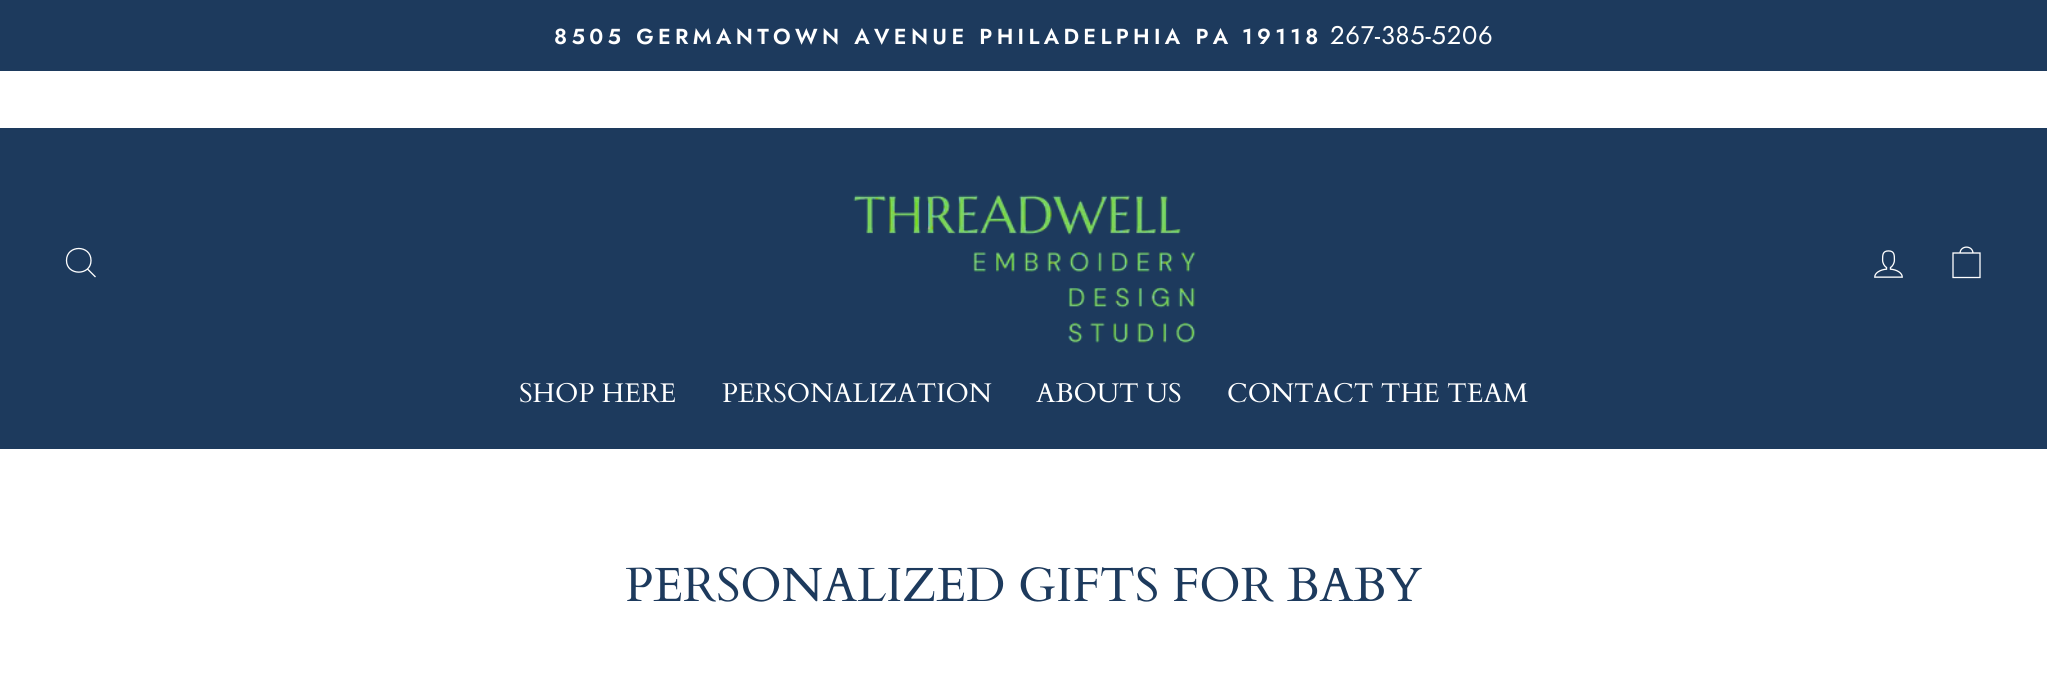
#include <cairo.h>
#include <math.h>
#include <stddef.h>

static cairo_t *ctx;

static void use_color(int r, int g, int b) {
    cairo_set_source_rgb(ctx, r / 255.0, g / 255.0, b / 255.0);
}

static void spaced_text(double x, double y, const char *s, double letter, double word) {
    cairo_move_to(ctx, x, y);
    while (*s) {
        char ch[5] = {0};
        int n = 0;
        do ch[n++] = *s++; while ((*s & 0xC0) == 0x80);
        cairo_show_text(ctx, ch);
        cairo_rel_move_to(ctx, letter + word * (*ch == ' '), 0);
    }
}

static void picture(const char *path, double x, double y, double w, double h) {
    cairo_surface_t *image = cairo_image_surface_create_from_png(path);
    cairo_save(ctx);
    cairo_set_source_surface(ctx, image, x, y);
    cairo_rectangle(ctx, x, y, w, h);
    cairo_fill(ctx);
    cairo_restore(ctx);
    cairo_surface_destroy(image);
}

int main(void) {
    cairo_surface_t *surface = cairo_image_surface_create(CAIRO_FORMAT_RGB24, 2047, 677);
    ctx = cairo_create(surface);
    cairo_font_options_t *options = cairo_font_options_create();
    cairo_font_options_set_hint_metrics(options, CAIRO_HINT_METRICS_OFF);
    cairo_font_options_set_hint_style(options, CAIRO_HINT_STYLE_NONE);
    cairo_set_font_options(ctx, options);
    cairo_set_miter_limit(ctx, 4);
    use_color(255, 255, 255);
    cairo_paint(ctx);
    use_color(29, 58, 93);
    cairo_rectangle(ctx, 0, 0, 2047, 71);
    cairo_fill(ctx);
    cairo_select_font_face(ctx, "Jost SemiBold", CAIRO_FONT_SLANT_NORMAL, CAIRO_FONT_WEIGHT_NORMAL);
    cairo_set_font_size(ctx, 21.7);
    use_color(255, 255, 255);
    spaced_text(554, 44, "8505 GERMANTOWN AVENUE PHILADELPHIA PA", 4.35, 0);
    spaced_text(1242, 44, "19118", 4.35, 0);
    cairo_select_font_face(ctx, "Jost", CAIRO_FONT_SLANT_NORMAL, CAIRO_FONT_WEIGHT_NORMAL);
    cairo_set_font_size(ctx, 25.5);
    spaced_text(1330, 44, "267-385-5206", 0.75, 0);
    use_color(29, 58, 93);
    cairo_rectangle(ctx, 0, 128, 2047, 321);
    cairo_fill(ctx);
    cairo_new_path(ctx);
    cairo_move_to(ctx, 91, 260.5);
    cairo_curve_to(ctx, 91, 276, 66.5, 276, 66.5, 260.5);
    cairo_curve_to(ctx, 66.5, 244.5, 91, 244.5, 91, 260.5);
    cairo_close_path(ctx);
    cairo_move_to(ctx, 95.5, 277);
    cairo_line_to(ctx, 87.5, 269);
    use_color(255, 255, 255);
    cairo_set_line_width(ctx, 1.3);
    cairo_stroke(ctx);
    picture("img1.png", 853, 195, 343, 148);
    picture("img2.png", 1874, 250, 29, 28);
    cairo_new_path(ctx);
    cairo_move_to(ctx, 1953, 253);
    cairo_line_to(ctx, 1980, 253);
    cairo_line_to(ctx, 1980, 277.5);
    cairo_line_to(ctx, 1953, 277.5);
    cairo_close_path(ctx);
    cairo_move_to(ctx, 1960, 253.5);
    cairo_curve_to(ctx, 1960, 245, 1973, 245, 1973, 253.5);
    cairo_stroke(ctx);
    cairo_select_font_face(ctx, "Cardo", CAIRO_FONT_SLANT_NORMAL, CAIRO_FONT_WEIGHT_NORMAL);
    cairo_set_font_size(ctx, 27);
    cairo_move_to(ctx, 519, 402);
    cairo_show_text(ctx, "SHOP HERE");
    cairo_move_to(ctx, 722, 402);
    cairo_show_text(ctx, "PERSONALIZATION");
    cairo_move_to(ctx, 1036, 402);
    cairo_show_text(ctx, "ABOUT US");
    cairo_move_to(ctx, 1227, 402);
    cairo_show_text(ctx, "CONTACT THE TEAM");
    cairo_set_font_size(ctx, 48);
    use_color(29, 58, 93);
    cairo_move_to(ctx, 625, 601);
    cairo_show_text(ctx, "PERSONALIZED GIFTS FOR BABY");
    cairo_surface_write_to_png(surface, "result.png");
    cairo_font_options_destroy(options);
    cairo_destroy(ctx);
    cairo_surface_destroy(surface);
    return 0;
}
